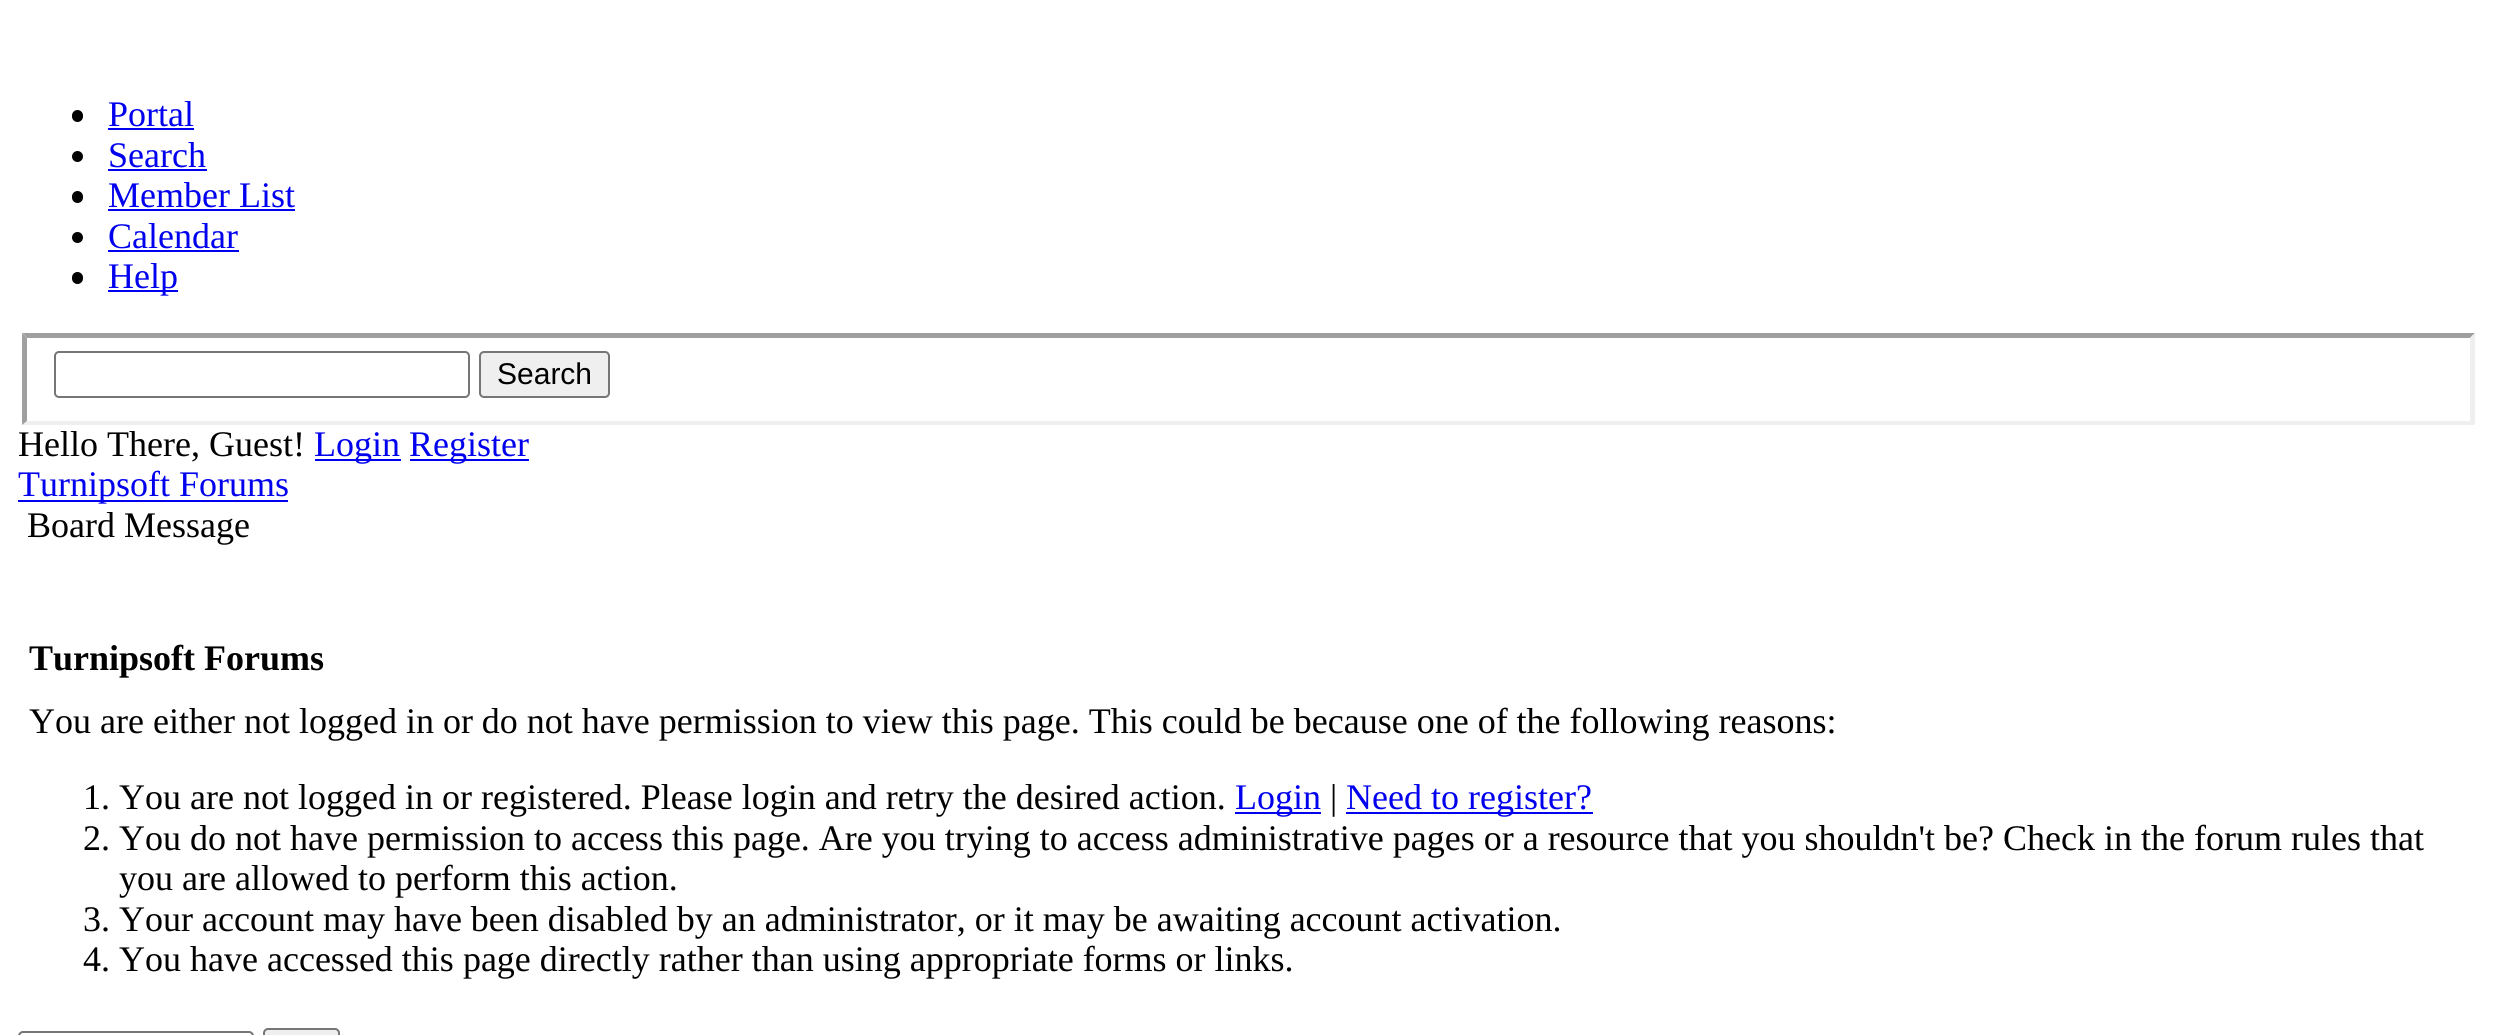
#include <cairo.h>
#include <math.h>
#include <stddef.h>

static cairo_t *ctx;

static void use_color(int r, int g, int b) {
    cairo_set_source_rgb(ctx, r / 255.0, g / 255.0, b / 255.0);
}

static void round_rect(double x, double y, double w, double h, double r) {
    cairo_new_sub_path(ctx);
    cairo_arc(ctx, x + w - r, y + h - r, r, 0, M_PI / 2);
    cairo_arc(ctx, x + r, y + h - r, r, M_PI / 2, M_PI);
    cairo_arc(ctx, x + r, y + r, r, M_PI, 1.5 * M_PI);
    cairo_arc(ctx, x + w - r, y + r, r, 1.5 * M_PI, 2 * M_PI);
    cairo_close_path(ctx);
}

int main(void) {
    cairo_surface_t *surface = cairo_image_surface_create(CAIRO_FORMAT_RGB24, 2496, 1035);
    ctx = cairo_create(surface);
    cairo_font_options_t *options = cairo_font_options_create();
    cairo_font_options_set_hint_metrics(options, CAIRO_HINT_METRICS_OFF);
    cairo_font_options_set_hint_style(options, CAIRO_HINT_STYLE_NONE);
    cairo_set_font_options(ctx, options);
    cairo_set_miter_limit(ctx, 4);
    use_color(255, 255, 255);
    cairo_paint(ctx);
    use_color(0, 0, 0);
    round_rect(72, 110, 11, 12, 5.5);
    cairo_fill(ctx);
    cairo_select_font_face(ctx, "Liberation Serif", CAIRO_FONT_SLANT_NORMAL, CAIRO_FONT_WEIGHT_NORMAL);
    cairo_set_font_size(ctx, 36);
    use_color(0, 0, 238);
    cairo_move_to(ctx, 108, 126);
    cairo_show_text(ctx, "Portal");
    cairo_rectangle(ctx, 108, 128, 86, 2);
    cairo_fill(ctx);
    use_color(0, 0, 0);
    cairo_arc(ctx, 77.5, 156.5, 5.5, 0, 2 * M_PI);
    cairo_fill(ctx);
    use_color(0, 0, 238);
    cairo_move_to(ctx, 108, 167);
    cairo_show_text(ctx, "Search");
    cairo_rectangle(ctx, 108, 169, 99, 2);
    cairo_fill(ctx);
    use_color(0, 0, 0);
    round_rect(72, 191, 11, 12, 5.5);
    cairo_fill(ctx);
    use_color(0, 0, 238);
    cairo_move_to(ctx, 108, 207);
    cairo_show_text(ctx, "Member List");
    cairo_rectangle(ctx, 108, 209, 187, 2);
    cairo_fill(ctx);
    use_color(0, 0, 0);
    cairo_arc(ctx, 77.5, 237.5, 5.5, 0, 2 * M_PI);
    cairo_fill(ctx);
    use_color(0, 0, 238);
    cairo_move_to(ctx, 108, 248);
    cairo_show_text(ctx, "Calendar");
    cairo_rectangle(ctx, 108, 250, 131, 2);
    cairo_fill(ctx);
    use_color(0, 0, 0);
    round_rect(72, 272, 11, 12, 5.5);
    cairo_fill(ctx);
    use_color(0, 0, 238);
    cairo_rectangle(ctx, 108, 290, 70, 2);
    cairo_fill(ctx);
    cairo_move_to(ctx, 108, 288);
    cairo_show_text(ctx, "Help");
    use_color(159, 159, 159);
    cairo_new_path(ctx);
    cairo_move_to(ctx, 22, 333);
    cairo_line_to(ctx, 2475, 333);
    cairo_line_to(ctx, 2470, 338);
    cairo_line_to(ctx, 27, 338);
    cairo_close_path(ctx);
    cairo_fill(ctx);
    use_color(239, 239, 239);
    cairo_new_path(ctx);
    cairo_move_to(ctx, 2475, 333);
    cairo_line_to(ctx, 2475, 425);
    cairo_line_to(ctx, 2470, 421);
    cairo_line_to(ctx, 2470, 338);
    cairo_close_path(ctx);
    cairo_fill(ctx);
    cairo_new_path(ctx);
    cairo_move_to(ctx, 2475, 425);
    cairo_line_to(ctx, 22, 425);
    cairo_line_to(ctx, 27, 421);
    cairo_line_to(ctx, 2470, 421);
    cairo_close_path(ctx);
    cairo_fill(ctx);
    use_color(159, 159, 159);
    cairo_new_path(ctx);
    cairo_move_to(ctx, 22, 425);
    cairo_line_to(ctx, 22, 333);
    cairo_line_to(ctx, 27, 338);
    cairo_line_to(ctx, 27, 421);
    cairo_close_path(ctx);
    cairo_fill(ctx);
    round_rect(55, 352, 414, 45, 4);
    use_color(118, 118, 118);
    cairo_stroke(ctx);
    use_color(239, 239, 239);
    round_rect(480, 352, 129, 45, 4);
    cairo_fill_preserve(ctx);
    use_color(118, 118, 118);
    cairo_stroke(ctx);
    cairo_select_font_face(ctx, "Liberation Sans", CAIRO_FONT_SLANT_NORMAL, CAIRO_FONT_WEIGHT_NORMAL);
    cairo_set_font_size(ctx, 30);
    use_color(0, 0, 0);
    cairo_move_to(ctx, 497, 384);
    cairo_show_text(ctx, "Search");
    cairo_select_font_face(ctx, "Liberation Serif", CAIRO_FONT_SLANT_NORMAL, CAIRO_FONT_WEIGHT_NORMAL);
    cairo_set_font_size(ctx, 36);
    cairo_move_to(ctx, 18, 456);
    cairo_show_text(ctx, "Hello There, Guest!");
    use_color(0, 0, 238);
    cairo_rectangle(ctx, 315, 459, 86, 2);
    cairo_fill(ctx);
    cairo_move_to(ctx, 314, 456);
    cairo_show_text(ctx, "Login");
    cairo_rectangle(ctx, 410, 459, 119, 2);
    cairo_fill(ctx);
    cairo_move_to(ctx, 409, 456);
    cairo_show_text(ctx, "Register");
    cairo_rectangle(ctx, 18, 500, 270, 2);
    cairo_fill(ctx);
    cairo_move_to(ctx, 18, 496);
    cairo_show_text(ctx, "Turnipsoft Forums");
    use_color(0, 0, 0);
    cairo_move_to(ctx, 27, 537);
    cairo_show_text(ctx, "Board Message");
    cairo_select_font_face(ctx, "Liberation Serif", CAIRO_FONT_SLANT_NORMAL, CAIRO_FONT_WEIGHT_BOLD);
    cairo_move_to(ctx, 29, 670);
    cairo_show_text(ctx, "Turnipsoft Forums");
    cairo_select_font_face(ctx, "Liberation Serif", CAIRO_FONT_SLANT_NORMAL, CAIRO_FONT_WEIGHT_NORMAL);
    cairo_move_to(ctx, 29, 733);
    cairo_show_text(ctx, "You are either not logged in or do not have permission to view this page. This could be because one of the following reasons:");
    cairo_move_to(ctx, 83, 809);
    cairo_show_text(ctx, "1. You are not logged in or registered. Please login and retry the desired action.");
    use_color(0, 0, 238);
    cairo_rectangle(ctx, 1235, 812, 86, 2);
    cairo_fill(ctx);
    cairo_move_to(ctx, 1235, 809);
    cairo_show_text(ctx, "Login");
    use_color(0, 0, 0);
    cairo_move_to(ctx, 1330, 809);
    cairo_show_text(ctx, "|");
    use_color(0, 0, 238);
    cairo_rectangle(ctx, 1346, 812, 247, 2);
    cairo_fill(ctx);
    cairo_move_to(ctx, 1346, 809);
    cairo_show_text(ctx, "Need to register?");
    use_color(0, 0, 0);
    cairo_move_to(ctx, 83, 850);
    cairo_show_text(ctx, "2. You do not have permission to access this page. Are you trying to access administrative pages or a resource that you shouldn't be? Check in the forum rules that");
    cairo_move_to(ctx, 119, 890);
    cairo_show_text(ctx, "you are allowed to perform this action.");
    cairo_move_to(ctx, 83, 931);
    cairo_show_text(ctx, "3. Your account may have been disabled by an administrator, or it may be awaiting account activation.");
    cairo_move_to(ctx, 83, 971);
    cairo_show_text(ctx, "4. You have accessed this page directly rather than using appropriate forms or links.");
    round_rect(19, 1032, 234, 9, 4);
    use_color(118, 118, 118);
    cairo_stroke(ctx);
    use_color(239, 239, 239);
    round_rect(264, 1029, 75, 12, 4);
    cairo_fill_preserve(ctx);
    use_color(118, 118, 118);
    cairo_stroke(ctx);
    cairo_surface_write_to_png(surface, "result.png");
    cairo_font_options_destroy(options);
    cairo_destroy(ctx);
    cairo_surface_destroy(surface);
    return 0;
}
